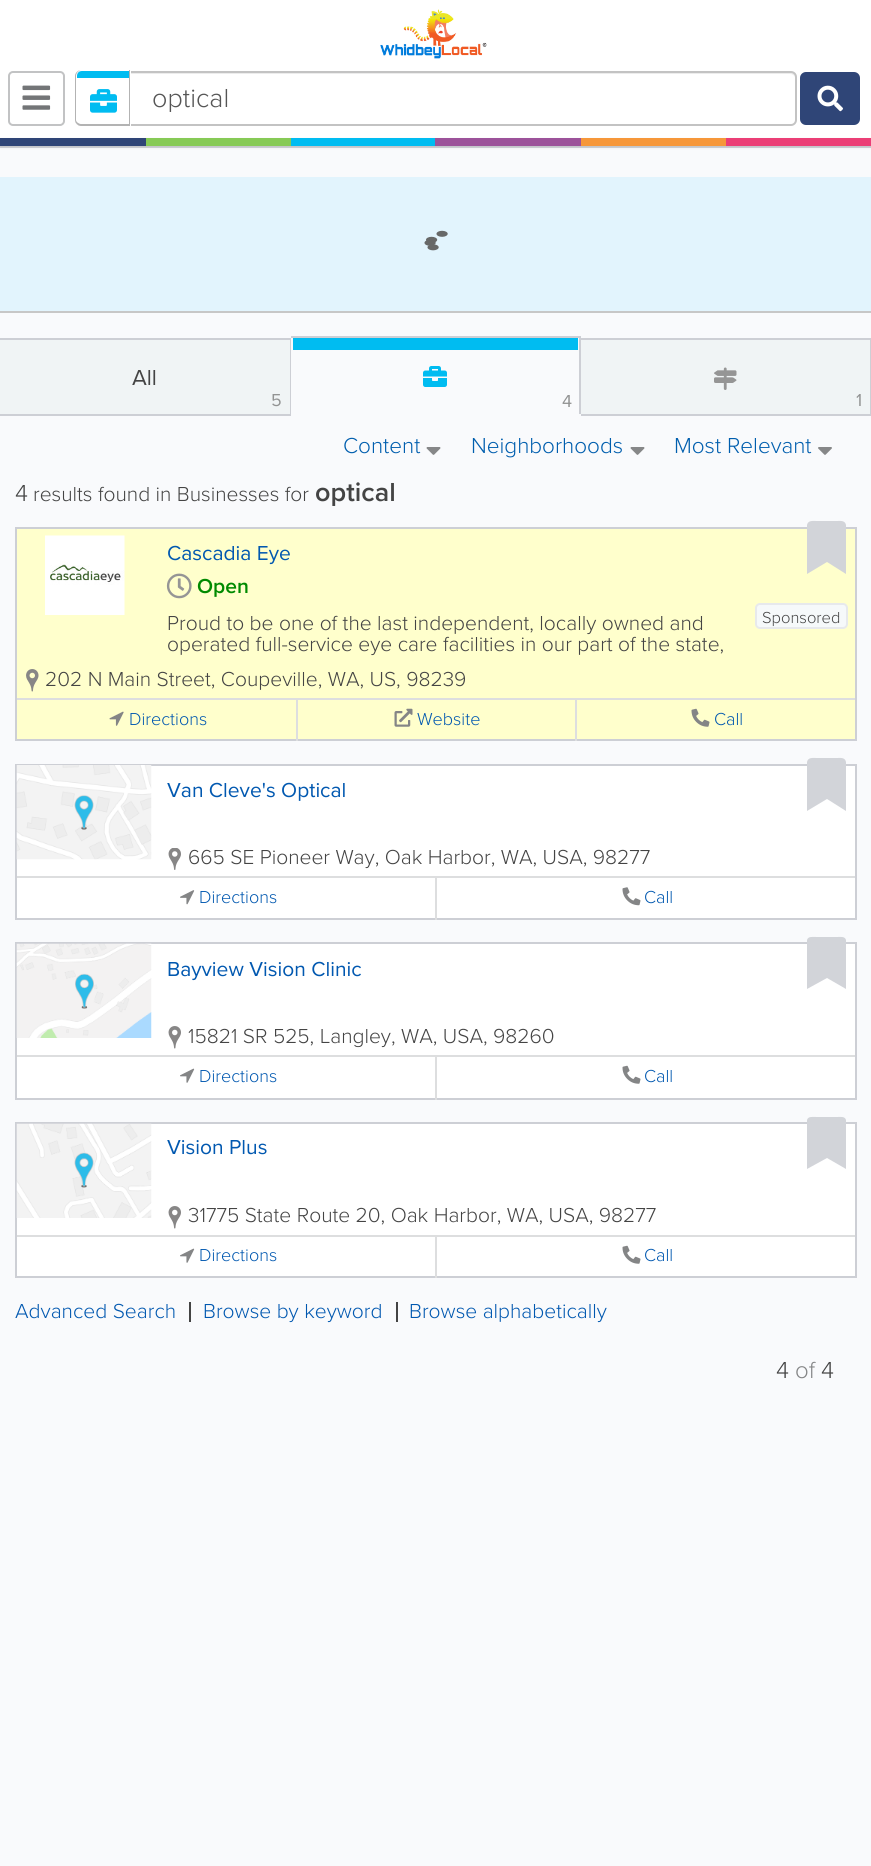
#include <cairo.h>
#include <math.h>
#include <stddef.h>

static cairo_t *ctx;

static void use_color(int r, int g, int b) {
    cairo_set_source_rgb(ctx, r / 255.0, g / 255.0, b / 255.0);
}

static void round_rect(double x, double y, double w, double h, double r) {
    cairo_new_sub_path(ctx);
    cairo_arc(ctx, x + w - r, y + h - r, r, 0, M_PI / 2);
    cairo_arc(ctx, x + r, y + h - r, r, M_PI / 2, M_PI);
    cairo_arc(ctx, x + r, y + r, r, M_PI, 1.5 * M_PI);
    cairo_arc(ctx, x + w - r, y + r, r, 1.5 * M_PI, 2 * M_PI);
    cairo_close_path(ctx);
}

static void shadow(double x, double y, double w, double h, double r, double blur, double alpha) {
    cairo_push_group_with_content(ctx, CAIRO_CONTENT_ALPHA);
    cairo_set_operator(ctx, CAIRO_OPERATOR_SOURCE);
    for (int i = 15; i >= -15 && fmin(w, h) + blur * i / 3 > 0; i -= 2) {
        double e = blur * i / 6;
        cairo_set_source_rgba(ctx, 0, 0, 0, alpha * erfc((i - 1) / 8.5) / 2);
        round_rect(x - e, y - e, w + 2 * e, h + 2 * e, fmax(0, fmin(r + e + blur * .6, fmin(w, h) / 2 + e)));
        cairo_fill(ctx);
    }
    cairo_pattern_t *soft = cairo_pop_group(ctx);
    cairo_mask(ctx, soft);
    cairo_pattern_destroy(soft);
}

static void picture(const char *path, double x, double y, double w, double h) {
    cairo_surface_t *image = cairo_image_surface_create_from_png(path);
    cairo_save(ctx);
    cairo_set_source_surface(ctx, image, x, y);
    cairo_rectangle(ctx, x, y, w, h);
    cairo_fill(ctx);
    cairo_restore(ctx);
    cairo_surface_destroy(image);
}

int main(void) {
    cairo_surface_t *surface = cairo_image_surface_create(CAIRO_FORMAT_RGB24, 871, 1866);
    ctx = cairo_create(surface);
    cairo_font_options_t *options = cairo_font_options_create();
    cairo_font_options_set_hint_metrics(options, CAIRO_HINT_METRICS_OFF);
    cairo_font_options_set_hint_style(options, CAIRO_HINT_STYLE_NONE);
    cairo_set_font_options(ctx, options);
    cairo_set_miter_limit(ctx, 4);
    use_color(249, 250, 252);
    cairo_paint(ctx);
    use_color(255, 255, 255);
    cairo_rectangle(ctx, 0, 0, 871, 138);
    cairo_fill(ctx);
    round_rect(9, 72, 55, 53, 4);
    use_color(194, 195, 196);
    cairo_stroke(ctx);
    picture("img1.png", 22, 85, 29, 25);
    picture("img2.png", 380, 9, 107, 50);
    use_color(236, 236, 236);
    cairo_new_path(ctx);
    cairo_move_to(ctx, 81, 74);
    cairo_line_to(ctx, 790, 74);
    cairo_curve_to(ctx, 793, 74, 795, 76, 795, 78);
    cairo_line_to(ctx, 795, 77);
    cairo_curve_to(ctx, 795, 74, 793, 72, 790, 72);
    cairo_line_to(ctx, 82, 72);
    cairo_curve_to(ctx, 80, 72, 78, 74, 77, 76);
    cairo_curve_to(ctx, 78, 75, 80, 74, 81, 74);
    cairo_close_path(ctx);
    cairo_fill(ctx);
    round_rect(76, 72, 720, 53, 5);
    use_color(195, 195, 195);
    cairo_stroke(ctx);
    use_color(255, 255, 255);
    cairo_new_path(ctx);
    cairo_move_to(ctx, 81, 71);
    cairo_line_to(ctx, 131, 71);
    cairo_line_to(ctx, 131, 126);
    cairo_line_to(ctx, 81, 126);
    cairo_curve_to(ctx, 77.5, 126, 75, 123.5, 75, 120);
    cairo_line_to(ctx, 75, 77);
    cairo_curve_to(ctx, 75, 73.5, 77.5, 71, 81, 71);
    cairo_close_path(ctx);
    cairo_fill(ctx);
    use_color(179, 179, 179);
    cairo_set_fill_rule(ctx, CAIRO_FILL_RULE_EVEN_ODD);
    cairo_new_path(ctx);
    cairo_move_to(ctx, 81, 70);
    cairo_line_to(ctx, 130, 70);
    cairo_line_to(ctx, 130, 126);
    cairo_line_to(ctx, 81, 126);
    cairo_curve_to(ctx, 78, 126, 75, 123, 75, 120);
    cairo_line_to(ctx, 75, 76);
    cairo_curve_to(ctx, 75, 73, 78, 70, 81, 70);
    cairo_close_path(ctx);
    cairo_move_to(ctx, 81, 70);
    cairo_line_to(ctx, 129, 70);
    cairo_line_to(ctx, 129, 124);
    cairo_line_to(ctx, 81, 124);
    cairo_curve_to(ctx, 79, 124, 76, 122, 76, 120);
    cairo_line_to(ctx, 76, 76);
    cairo_curve_to(ctx, 76, 73, 79, 70, 81, 70);
    cairo_close_path(ctx);
    cairo_fill(ctx);
    use_color(0, 188, 241);
    cairo_new_path(ctx);
    cairo_move_to(ctx, 82, 71);
    cairo_line_to(ctx, 129, 71);
    cairo_line_to(ctx, 129, 78);
    cairo_line_to(ctx, 77, 78);
    cairo_line_to(ctx, 77, 76);
    cairo_curve_to(ctx, 77, 73, 79, 71, 82, 71);
    cairo_close_path(ctx);
    cairo_fill(ctx);
    picture("img3.png", 90, 89, 27, 24);
    cairo_select_font_face(ctx, "Proxima Nova Light", CAIRO_FONT_SLANT_NORMAL, CAIRO_FONT_WEIGHT_NORMAL);
    cairo_set_font_size(ctx, 27);
    use_color(85, 85, 85);
    cairo_move_to(ctx, 152, 107);
    cairo_show_text(ctx, "optical");
    use_color(47, 69, 119);
    round_rect(801, 73, 58, 51, 5);
    cairo_fill_preserve(ctx);
    cairo_stroke(ctx);
    picture("img4.png", 817, 85, 26, 27);
    use_color(209, 211, 216);
    cairo_rectangle(ctx, 0, 146, 871, 2);
    cairo_fill(ctx);
    use_color(0, 0, 0);
    shadow(0, 140, 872, 7, 0, 1.5, 0.1);
    use_color(235, 62, 118);
    cairo_rectangle(ctx, 726, 138, 145, 8);
    cairo_fill(ctx);
    use_color(47, 69, 119);
    cairo_rectangle(ctx, 0, 138, 146, 8);
    cairo_fill(ctx);
    use_color(135, 202, 86);
    cairo_rectangle(ctx, 146, 138, 145, 8);
    cairo_fill(ctx);
    use_color(0, 188, 241);
    cairo_rectangle(ctx, 291, 138, 144, 8);
    cairo_fill(ctx);
    use_color(156, 82, 154);
    cairo_rectangle(ctx, 435, 138, 146, 8);
    cairo_fill(ctx);
    use_color(246, 151, 58);
    cairo_rectangle(ctx, 581, 138, 145, 8);
    cairo_fill(ctx);
    use_color(199, 199, 199);
    cairo_rectangle(ctx, 0, 311, 871, 2);
    cairo_fill(ctx);
    use_color(226, 244, 253);
    cairo_rectangle(ctx, 0, 177, 871, 134);
    cairo_fill(ctx);
    picture("img7.png", 424, 240, 12, 6);
    picture("img6.png", 426, 236, 12, 6);
    picture("img5.png", 436, 230, 12, 7);
    picture("img8.png", 427, 244, 12, 7);
    use_color(240, 244, 245);
    cairo_rectangle(ctx, 0, 340, 290, 74);
    cairo_fill(ctx);
    use_color(205, 207, 213);
    cairo_rectangle(ctx, 0, 338, 291, 2);
    cairo_fill(ctx);
    cairo_rectangle(ctx, 290, 338, 1, 78);
    cairo_fill(ctx);
    cairo_rectangle(ctx, 0, 414, 291, 2);
    cairo_fill(ctx);
    cairo_select_font_face(ctx, "Proxima Nova", CAIRO_FONT_SLANT_NORMAL, CAIRO_FONT_WEIGHT_NORMAL);
    cairo_set_font_size(ctx, 22.5);
    use_color(68, 68, 68);
    cairo_move_to(ctx, 132, 385);
    cairo_show_text(ctx, "All");
    cairo_set_font_size(ctx, 18);
    use_color(146, 147, 147);
    cairo_move_to(ctx, 271, 406);
    cairo_show_text(ctx, "5");
    use_color(205, 207, 213);
    cairo_rectangle(ctx, 291, 336, 290, 2);
    cairo_fill(ctx);
    cairo_rectangle(ctx, 579, 336, 2, 80);
    cairo_fill(ctx);
    use_color(249, 250, 252);
    cairo_rectangle(ctx, 579, 414, 2, 2);
    cairo_fill(ctx);
    use_color(0, 188, 241);
    cairo_rectangle(ctx, 293, 338, 285, 12);
    cairo_fill(ctx);
    picture("img9.png", 423, 366, 24, 21);
    use_color(146, 147, 147);
    cairo_move_to(ctx, 562, 407);
    cairo_show_text(ctx, "4");
    use_color(240, 244, 245);
    cairo_rectangle(ctx, 581, 340, 289, 74);
    cairo_fill(ctx);
    use_color(205, 207, 213);
    cairo_rectangle(ctx, 581, 338, 290, 2);
    cairo_fill(ctx);
    cairo_rectangle(ctx, 870, 338, 1, 78);
    cairo_fill(ctx);
    cairo_rectangle(ctx, 581, 414, 290, 2);
    cairo_fill(ctx);
    picture("img10.png", 714, 367, 23, 23);
    use_color(146, 147, 147);
    cairo_move_to(ctx, 856, 406);
    cairo_show_text(ctx, "1");
    cairo_select_font_face(ctx, "Proxima Nova Light", CAIRO_FONT_SLANT_NORMAL, CAIRO_FONT_WEIGHT_NORMAL);
    cairo_set_font_size(ctx, 22.5);
    use_color(0, 94, 174);
    cairo_move_to(ctx, 343, 453);
    cairo_show_text(ctx, "Content");
    picture("img11.png", 426, 447, 15, 8);
    cairo_move_to(ctx, 471, 453);
    cairo_show_text(ctx, "Neighborhoods");
    picture("img11.png", 630, 447, 15, 8);
    cairo_move_to(ctx, 674, 453);
    cairo_show_text(ctx, "Most Relevant");
    picture("img12.png", 818, 447, 14, 8);
    cairo_set_font_size(ctx, 24);
    use_color(68, 68, 68);
    cairo_move_to(ctx, 15, 501);
    cairo_show_text(ctx, "4");
    cairo_set_font_size(ctx, 21);
    cairo_move_to(ctx, 33, 501);
    cairo_show_text(ctx, "results found in Businesses for");
    cairo_select_font_face(ctx, "Proxima Nova SemiBold", CAIRO_FONT_SLANT_NORMAL, CAIRO_FONT_WEIGHT_NORMAL);
    cairo_set_font_size(ctx, 27);
    cairo_move_to(ctx, 315, 501);
    cairo_show_text(ctx, "optical");
    use_color(255, 255, 204);
    cairo_rectangle(ctx, 16, 528, 840, 212);
    cairo_fill_preserve(ctx);
    use_color(205, 207, 213);
    cairo_stroke(ctx);
    picture("img13.png", 45, 535, 80, 80);
    cairo_select_font_face(ctx, "Proxima Nova", CAIRO_FONT_SLANT_NORMAL, CAIRO_FONT_WEIGHT_NORMAL);
    cairo_set_font_size(ctx, 21);
    use_color(1, 88, 176);
    cairo_move_to(ctx, 167, 560);
    cairo_show_text(ctx, "Cascadia Eye");
    picture("img14.png", 166, 573, 26, 26);
    cairo_select_font_face(ctx, "Proxima Nova SemiBold", CAIRO_FONT_SLANT_NORMAL, CAIRO_FONT_WEIGHT_NORMAL);
    use_color(0, 138, 0);
    cairo_move_to(ctx, 197, 593);
    cairo_show_text(ctx, "Open");
    use_color(210, 212, 217);
    cairo_set_fill_rule(ctx, CAIRO_FILL_RULE_WINDING);
    cairo_new_path(ctx);
    cairo_move_to(ctx, 807, 574);
    cairo_line_to(ctx, 807, 525);
    cairo_curve_to(ctx, 808, 520, 813, 521, 817, 521);
    cairo_line_to(ctx, 837, 521);
    cairo_curve_to(ctx, 840, 521, 845, 520, 846, 525);
    cairo_line_to(ctx, 846, 574);
    cairo_line_to(ctx, 827, 562);
    cairo_close_path(ctx);
    cairo_fill(ctx);
    cairo_select_font_face(ctx, "Proxima Nova Light", CAIRO_FONT_SLANT_NORMAL, CAIRO_FONT_WEIGHT_NORMAL);
    use_color(68, 68, 68);
    cairo_move_to(ctx, 167, 630);
    cairo_show_text(ctx, "Proud to be one of the last independent, locally owned and");
    cairo_move_to(ctx, 167, 651);
    cairo_show_text(ctx, "operated full-service eye care facilities in our part of the state,");
    use_color(246, 249, 250);
    round_rect(756, 604, 91, 24, 4);
    cairo_fill_preserve(ctx);
    use_color(231, 233, 236);
    cairo_stroke(ctx);
    cairo_set_font_size(ctx, 16.5);
    use_color(68, 68, 68);
    cairo_move_to(ctx, 762, 623);
    cairo_show_text(ctx, "Sponsored");
    picture("img15.png", 26, 669, 13, 23);
    cairo_set_font_size(ctx, 21);
    cairo_move_to(ctx, 45, 686);
    cairo_show_text(ctx, "202 N Main Street, Coupeville, WA, US, 98239");
    use_color(221, 222, 223);
    cairo_rectangle(ctx, 17, 698, 838, 2);
    cairo_fill(ctx);
    picture("img16.png", 109, 711, 15, 15);
    cairo_set_font_size(ctx, 18);
    use_color(1, 88, 176);
    cairo_move_to(ctx, 129, 725);
    cairo_show_text(ctx, "Directions");
    use_color(221, 222, 223);
    cairo_rectangle(ctx, 296, 699, 2, 42);
    cairo_fill(ctx);
    picture("img17.png", 394, 708, 19, 19);
    use_color(1, 88, 176);
    cairo_move_to(ctx, 417, 725);
    cairo_show_text(ctx, "Website");
    use_color(221, 222, 223);
    cairo_rectangle(ctx, 575, 699, 2, 42);
    cairo_fill(ctx);
    picture("img18.png", 691, 708, 19, 19);
    use_color(1, 88, 176);
    cairo_move_to(ctx, 714, 725);
    cairo_show_text(ctx, "Call");
    use_color(255, 255, 255);
    cairo_rectangle(ctx, 16, 765, 840, 154);
    cairo_fill_preserve(ctx);
    use_color(205, 207, 213);
    cairo_stroke(ctx);
    picture("img19.png", 16, 765, 136, 95);
    cairo_select_font_face(ctx, "Proxima Nova", CAIRO_FONT_SLANT_NORMAL, CAIRO_FONT_WEIGHT_NORMAL);
    cairo_set_font_size(ctx, 21);
    use_color(1, 88, 176);
    cairo_move_to(ctx, 167, 797);
    cairo_show_text(ctx, "Van Cleve's Optical");
    use_color(210, 212, 217);
    cairo_new_path(ctx);
    cairo_move_to(ctx, 807, 811);
    cairo_line_to(ctx, 807, 762);
    cairo_curve_to(ctx, 808, 757, 813, 758, 817, 758);
    cairo_line_to(ctx, 837, 758);
    cairo_curve_to(ctx, 840, 758, 845, 757, 846, 762);
    cairo_line_to(ctx, 846, 811);
    cairo_line_to(ctx, 827, 799);
    cairo_close_path(ctx);
    cairo_fill(ctx);
    picture("img20.png", 168, 848, 13, 22);
    cairo_select_font_face(ctx, "Proxima Nova Light", CAIRO_FONT_SLANT_NORMAL, CAIRO_FONT_WEIGHT_NORMAL);
    use_color(68, 68, 68);
    cairo_move_to(ctx, 188, 864);
    cairo_show_text(ctx, "665 SE Pioneer Way, Oak Harbor, WA, USA, 98277");
    use_color(221, 222, 223);
    cairo_rectangle(ctx, 17, 876, 838, 2);
    cairo_fill(ctx);
    picture("img21.png", 180, 890, 15, 15);
    cairo_set_font_size(ctx, 18);
    use_color(1, 88, 176);
    cairo_move_to(ctx, 199, 903);
    cairo_show_text(ctx, "Directions");
    use_color(221, 222, 223);
    cairo_rectangle(ctx, 435, 878, 2, 42);
    cairo_fill(ctx);
    picture("img22.png", 622, 887, 19, 19);
    use_color(1, 88, 176);
    cairo_move_to(ctx, 644, 903);
    cairo_show_text(ctx, "Call");
    use_color(255, 255, 255);
    cairo_rectangle(ctx, 16, 943, 840, 156);
    cairo_fill_preserve(ctx);
    use_color(205, 207, 213);
    cairo_stroke(ctx);
    picture("img23.png", 16, 943, 136, 95);
    cairo_select_font_face(ctx, "Proxima Nova", CAIRO_FONT_SLANT_NORMAL, CAIRO_FONT_WEIGHT_NORMAL);
    cairo_set_font_size(ctx, 21);
    use_color(1, 88, 176);
    cairo_move_to(ctx, 167, 976);
    cairo_show_text(ctx, "Bayview Vision Clinic");
    use_color(210, 212, 217);
    cairo_new_path(ctx);
    cairo_move_to(ctx, 807, 989);
    cairo_line_to(ctx, 807, 940);
    cairo_curve_to(ctx, 808, 936, 813, 937, 817, 937);
    cairo_line_to(ctx, 837, 937);
    cairo_curve_to(ctx, 840, 937, 845, 936, 846, 940);
    cairo_line_to(ctx, 846, 989);
    cairo_line_to(ctx, 827, 978);
    cairo_close_path(ctx);
    cairo_fill(ctx);
    picture("img24.png", 168, 1026, 13, 23);
    cairo_select_font_face(ctx, "Proxima Nova Light", CAIRO_FONT_SLANT_NORMAL, CAIRO_FONT_WEIGHT_NORMAL);
    use_color(68, 68, 68);
    cairo_move_to(ctx, 188, 1043);
    cairo_show_text(ctx, "15821 SR 525, Langley, WA, USA, 98260");
    use_color(221, 222, 223);
    cairo_rectangle(ctx, 17, 1055, 838, 2);
    cairo_fill(ctx);
    picture("img25.png", 180, 1068, 15, 15);
    cairo_set_font_size(ctx, 18);
    use_color(1, 88, 176);
    cairo_move_to(ctx, 199, 1082);
    cairo_show_text(ctx, "Directions");
    use_color(221, 222, 223);
    cairo_rectangle(ctx, 435, 1056, 2, 44);
    cairo_fill(ctx);
    picture("img26.png", 622, 1065, 19, 19);
    use_color(1, 88, 176);
    cairo_move_to(ctx, 644, 1082);
    cairo_show_text(ctx, "Call");
    use_color(255, 255, 255);
    cairo_rectangle(ctx, 16, 1123, 840, 154);
    cairo_fill_preserve(ctx);
    use_color(205, 207, 213);
    cairo_stroke(ctx);
    picture("img27.png", 16, 1123, 136, 95);
    cairo_select_font_face(ctx, "Proxima Nova", CAIRO_FONT_SLANT_NORMAL, CAIRO_FONT_WEIGHT_NORMAL);
    cairo_set_font_size(ctx, 21);
    use_color(1, 88, 176);
    cairo_move_to(ctx, 167, 1154);
    cairo_show_text(ctx, "Vision Plus");
    use_color(210, 212, 217);
    cairo_new_path(ctx);
    cairo_move_to(ctx, 807, 1169);
    cairo_line_to(ctx, 807, 1120);
    cairo_curve_to(ctx, 808, 1116, 813, 1117, 817, 1117);
    cairo_line_to(ctx, 837, 1117);
    cairo_curve_to(ctx, 840, 1117, 845, 1116, 846, 1120);
    cairo_line_to(ctx, 846, 1169);
    cairo_line_to(ctx, 827, 1158);
    cairo_close_path(ctx);
    cairo_fill(ctx);
    picture("img24.png", 168, 1206, 13, 23);
    cairo_select_font_face(ctx, "Proxima Nova Light", CAIRO_FONT_SLANT_NORMAL, CAIRO_FONT_WEIGHT_NORMAL);
    use_color(68, 68, 68);
    cairo_move_to(ctx, 188, 1222);
    cairo_show_text(ctx, "31775 State Route 20, Oak Harbor, WA, USA, 98277");
    use_color(221, 222, 223);
    cairo_rectangle(ctx, 17, 1235, 838, 2);
    cairo_fill(ctx);
    picture("img25.png", 180, 1248, 15, 15);
    cairo_set_font_size(ctx, 18);
    use_color(1, 88, 176);
    cairo_move_to(ctx, 199, 1261);
    cairo_show_text(ctx, "Directions");
    use_color(221, 222, 223);
    cairo_rectangle(ctx, 435, 1236, 2, 42);
    cairo_fill(ctx);
    picture("img26.png", 622, 1245, 19, 19);
    use_color(1, 88, 176);
    cairo_move_to(ctx, 644, 1261);
    cairo_show_text(ctx, "Call");
    use_color(68, 68, 68);
    cairo_rectangle(ctx, 189, 1302, 2, 20);
    cairo_fill(ctx);
    cairo_set_font_size(ctx, 21);
    use_color(1, 88, 176);
    cairo_move_to(ctx, 15, 1318);
    cairo_show_text(ctx, "Advanced Search");
    use_color(68, 68, 68);
    cairo_rectangle(ctx, 396, 1302, 2, 20);
    cairo_fill(ctx);
    use_color(1, 88, 176);
    cairo_move_to(ctx, 203, 1318);
    cairo_show_text(ctx, "Browse by keyword");
    cairo_move_to(ctx, 409, 1318);
    cairo_show_text(ctx, "Browse alphabetically");
    cairo_set_font_size(ctx, 24);
    use_color(68, 68, 68);
    cairo_move_to(ctx, 776, 1378);
    cairo_show_text(ctx, "4");
    use_color(132, 133, 134);
    cairo_move_to(ctx, 795, 1378);
    cairo_show_text(ctx, "of");
    use_color(68, 68, 68);
    cairo_move_to(ctx, 821, 1378);
    cairo_show_text(ctx, "4");
    cairo_surface_write_to_png(surface, "result.png");
    cairo_font_options_destroy(options);
    cairo_destroy(ctx);
    cairo_surface_destroy(surface);
    return 0;
}
